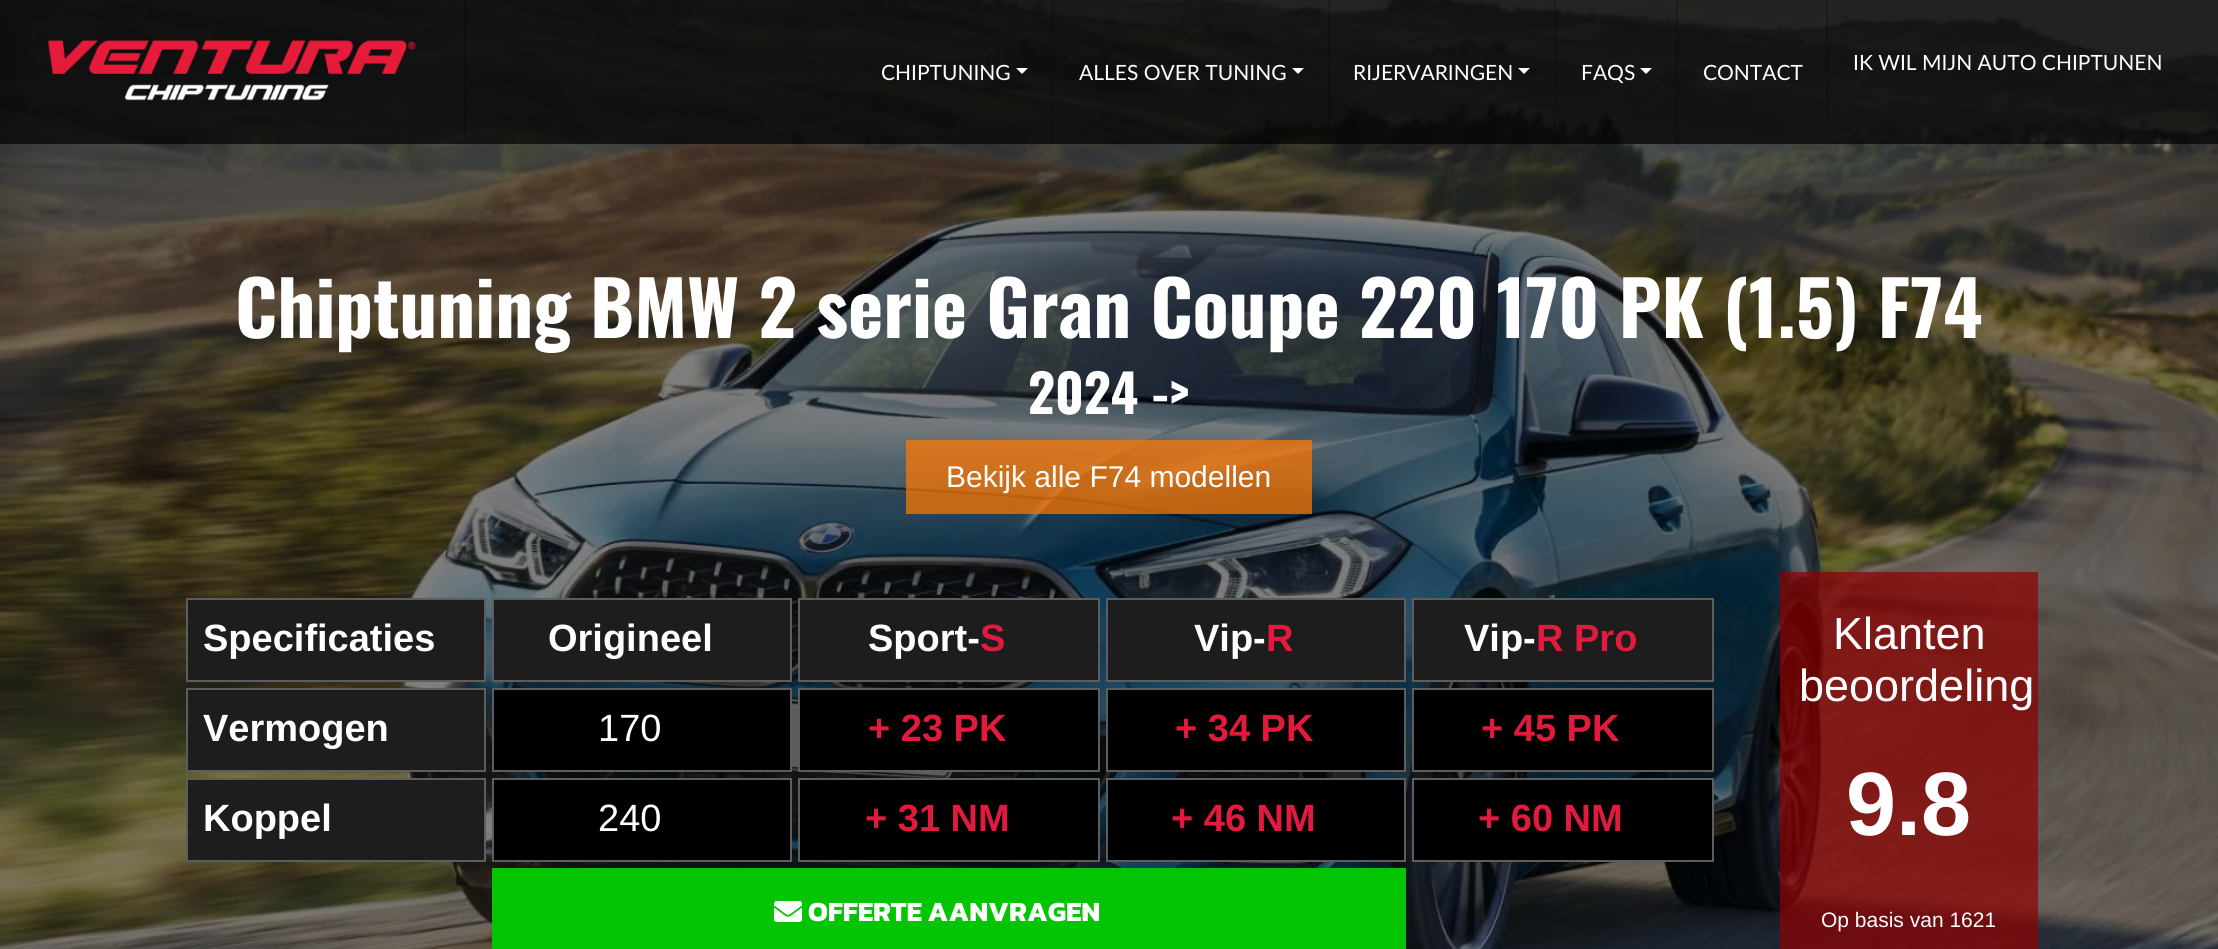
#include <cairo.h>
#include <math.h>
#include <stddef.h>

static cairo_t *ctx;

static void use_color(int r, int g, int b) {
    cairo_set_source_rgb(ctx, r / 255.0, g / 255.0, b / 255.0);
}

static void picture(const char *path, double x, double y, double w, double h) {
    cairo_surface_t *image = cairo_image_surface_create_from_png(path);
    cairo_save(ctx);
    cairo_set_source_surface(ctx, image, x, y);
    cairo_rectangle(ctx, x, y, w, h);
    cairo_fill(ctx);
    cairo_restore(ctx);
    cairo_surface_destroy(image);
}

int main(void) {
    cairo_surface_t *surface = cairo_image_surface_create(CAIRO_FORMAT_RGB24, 2218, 949);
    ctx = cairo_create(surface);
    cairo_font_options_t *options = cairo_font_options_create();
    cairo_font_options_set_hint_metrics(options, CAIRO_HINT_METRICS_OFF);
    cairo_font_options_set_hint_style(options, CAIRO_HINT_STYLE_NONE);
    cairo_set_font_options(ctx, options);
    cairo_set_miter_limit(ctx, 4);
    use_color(255, 255, 255);
    cairo_paint(ctx);
    picture("img2.png", 0, 0, 2218, 949);
    cairo_set_source_rgba(ctx, 0, 0, 0, 0.7);
    cairo_rectangle(ctx, 0, 0, 2218, 144);
    cairo_fill(ctx);
    cairo_set_source_rgba(ctx, 0, 0, 0, 0.2);
    cairo_rectangle(ctx, 464, 0, 2, 140);
    cairo_fill(ctx);
    picture("img1.png", 48, 40, 368, 61);
    cairo_select_font_face(ctx, "Lato", CAIRO_FONT_SLANT_NORMAL, CAIRO_FONT_WEIGHT_NORMAL);
    cairo_set_font_size(ctx, 21);
    use_color(255, 255, 255);
    cairo_move_to(ctx, 881, 80);
    cairo_show_text(ctx, "CHIPTUNING");
    cairo_new_path(ctx);
    cairo_move_to(ctx, 1016, 68);
    cairo_line_to(ctx, 1028, 68);
    cairo_line_to(ctx, 1022, 74);
    cairo_close_path(ctx);
    cairo_fill(ctx);
    cairo_set_source_rgba(ctx, 0, 0, 0, 0.2);
    cairo_rectangle(ctx, 1052, 0, 2, 144);
    cairo_fill(ctx);
    use_color(255, 255, 255);
    cairo_move_to(ctx, 1079, 80);
    cairo_show_text(ctx, "ALLES OVER TUNING");
    cairo_new_path(ctx);
    cairo_move_to(ctx, 1292, 68);
    cairo_line_to(ctx, 1304, 68);
    cairo_line_to(ctx, 1298, 74);
    cairo_close_path(ctx);
    cairo_fill(ctx);
    cairo_set_source_rgba(ctx, 0, 0, 0, 0.2);
    cairo_rectangle(ctx, 1328, 0, 2, 144);
    cairo_fill(ctx);
    use_color(255, 255, 255);
    cairo_move_to(ctx, 1353, 80);
    cairo_show_text(ctx, "RIJERVARINGEN");
    cairo_new_path(ctx);
    cairo_move_to(ctx, 1518, 68);
    cairo_line_to(ctx, 1530, 68);
    cairo_line_to(ctx, 1524, 74);
    cairo_close_path(ctx);
    cairo_fill(ctx);
    cairo_set_source_rgba(ctx, 0, 0, 0, 0.2);
    cairo_rectangle(ctx, 1554, 0, 2, 132);
    cairo_fill(ctx);
    use_color(255, 255, 255);
    cairo_move_to(ctx, 1581, 80);
    cairo_show_text(ctx, "FAQS");
    cairo_new_path(ctx);
    cairo_move_to(ctx, 1640, 68);
    cairo_line_to(ctx, 1652, 68);
    cairo_line_to(ctx, 1646, 74);
    cairo_close_path(ctx);
    cairo_fill(ctx);
    cairo_set_source_rgba(ctx, 0, 0, 0, 0.2);
    cairo_rectangle(ctx, 1676, 0, 2, 144);
    cairo_fill(ctx);
    use_color(255, 255, 255);
    cairo_move_to(ctx, 1703, 80);
    cairo_show_text(ctx, "CONTACT");
    cairo_set_source_rgba(ctx, 0, 0, 0, 0.2);
    cairo_rectangle(ctx, 1826, 0, 2, 128);
    cairo_fill(ctx);
    use_color(255, 255, 255);
    cairo_move_to(ctx, 1853, 70);
    cairo_show_text(ctx, "IK WIL MIJN AUTO CHIPTUNEN");
    cairo_select_font_face(ctx, "Oswald", CAIRO_FONT_SLANT_NORMAL, CAIRO_FONT_WEIGHT_BOLD);
    cairo_set_font_size(ctx, 75);
    cairo_move_to(ctx, 235, 338);
    cairo_show_text(ctx, "Chiptuning BMW 2 serie Gran Coupe 220 170 PK (1.5) F74");
    cairo_set_font_size(ctx, 52.5);
    cairo_move_to(ctx, 1028, 414);
    cairo_show_text(ctx, "2024 ->");
    cairo_set_source_rgba(ctx, 1, 0.471, 0, 0.72);
    cairo_rectangle(ctx, 906, 440, 406, 74);
    cairo_fill(ctx);
    cairo_select_font_face(ctx, "Liberation Sans", CAIRO_FONT_SLANT_NORMAL, CAIRO_FONT_WEIGHT_NORMAL);
    cairo_set_font_size(ctx, 30);
    use_color(255, 255, 255);
    cairo_move_to(ctx, 946, 487);
    cairo_show_text(ctx, "Bekijk alle F74 modellen");
    use_color(29, 29, 29);
    cairo_rectangle(ctx, 187, 599, 298, 82);
    cairo_fill_preserve(ctx);
    use_color(93, 93, 93);
    cairo_stroke(ctx);
    cairo_select_font_face(ctx, "Liberation Sans", CAIRO_FONT_SLANT_NORMAL, CAIRO_FONT_WEIGHT_BOLD);
    cairo_set_font_size(ctx, 38);
    use_color(255, 255, 255);
    cairo_move_to(ctx, 203, 651);
    cairo_show_text(ctx, "Specificaties");
    use_color(29, 29, 29);
    cairo_rectangle(ctx, 493, 599, 298, 82);
    cairo_fill_preserve(ctx);
    use_color(93, 93, 93);
    cairo_stroke(ctx);
    use_color(255, 255, 255);
    cairo_move_to(ctx, 548, 651);
    cairo_show_text(ctx, "Origineel");
    use_color(29, 29, 29);
    cairo_rectangle(ctx, 799, 599, 300, 82);
    cairo_fill_preserve(ctx);
    use_color(93, 93, 93);
    cairo_stroke(ctx);
    use_color(255, 255, 255);
    cairo_move_to(ctx, 868, 651);
    cairo_show_text(ctx, "Sport-");
    use_color(225, 26, 62);
    cairo_move_to(ctx, 980, 651);
    cairo_show_text(ctx, "S");
    use_color(29, 29, 29);
    cairo_rectangle(ctx, 1107, 599, 298, 82);
    cairo_fill_preserve(ctx);
    use_color(93, 93, 93);
    cairo_stroke(ctx);
    use_color(255, 255, 255);
    cairo_move_to(ctx, 1194, 651);
    cairo_show_text(ctx, "Vip-");
    use_color(225, 26, 62);
    cairo_move_to(ctx, 1266, 651);
    cairo_show_text(ctx, "R");
    use_color(29, 29, 29);
    cairo_rectangle(ctx, 1413, 599, 300, 82);
    cairo_fill_preserve(ctx);
    use_color(93, 93, 93);
    cairo_stroke(ctx);
    use_color(255, 255, 255);
    cairo_move_to(ctx, 1464, 651);
    cairo_show_text(ctx, "Vip-");
    use_color(225, 26, 62);
    cairo_move_to(ctx, 1536, 651);
    cairo_show_text(ctx, "R Pro");
    use_color(29, 29, 29);
    cairo_rectangle(ctx, 187, 689, 298, 82);
    cairo_fill_preserve(ctx);
    use_color(93, 93, 93);
    cairo_stroke(ctx);
    use_color(255, 255, 255);
    cairo_move_to(ctx, 203, 741);
    cairo_show_text(ctx, "Vermogen");
    use_color(0, 0, 0);
    cairo_rectangle(ctx, 493, 689, 298, 82);
    cairo_fill_preserve(ctx);
    use_color(93, 93, 93);
    cairo_stroke(ctx);
    cairo_select_font_face(ctx, "Liberation Sans", CAIRO_FONT_SLANT_NORMAL, CAIRO_FONT_WEIGHT_NORMAL);
    use_color(255, 255, 255);
    cairo_move_to(ctx, 598, 741);
    cairo_show_text(ctx, "170");
    use_color(0, 0, 0);
    cairo_rectangle(ctx, 799, 689, 300, 82);
    cairo_fill_preserve(ctx);
    use_color(93, 93, 93);
    cairo_stroke(ctx);
    cairo_select_font_face(ctx, "Liberation Sans", CAIRO_FONT_SLANT_NORMAL, CAIRO_FONT_WEIGHT_BOLD);
    use_color(225, 26, 62);
    cairo_move_to(ctx, 868, 741);
    cairo_show_text(ctx, "+ 23 PK");
    use_color(0, 0, 0);
    cairo_rectangle(ctx, 1107, 689, 298, 82);
    cairo_fill_preserve(ctx);
    use_color(93, 93, 93);
    cairo_stroke(ctx);
    use_color(225, 26, 62);
    cairo_move_to(ctx, 1175, 741);
    cairo_show_text(ctx, "+ 34 PK");
    use_color(0, 0, 0);
    cairo_rectangle(ctx, 1413, 689, 300, 82);
    cairo_fill_preserve(ctx);
    use_color(93, 93, 93);
    cairo_stroke(ctx);
    use_color(225, 26, 62);
    cairo_move_to(ctx, 1481, 741);
    cairo_show_text(ctx, "+ 45 PK");
    use_color(29, 29, 29);
    cairo_rectangle(ctx, 187, 779, 298, 82);
    cairo_fill_preserve(ctx);
    use_color(93, 93, 93);
    cairo_stroke(ctx);
    use_color(255, 255, 255);
    cairo_move_to(ctx, 203, 831);
    cairo_show_text(ctx, "Koppel");
    use_color(0, 0, 0);
    cairo_rectangle(ctx, 493, 779, 298, 82);
    cairo_fill_preserve(ctx);
    use_color(93, 93, 93);
    cairo_stroke(ctx);
    cairo_select_font_face(ctx, "Liberation Sans", CAIRO_FONT_SLANT_NORMAL, CAIRO_FONT_WEIGHT_NORMAL);
    use_color(255, 255, 255);
    cairo_move_to(ctx, 598, 831);
    cairo_show_text(ctx, "240");
    use_color(0, 0, 0);
    cairo_rectangle(ctx, 799, 779, 300, 82);
    cairo_fill_preserve(ctx);
    use_color(93, 93, 93);
    cairo_stroke(ctx);
    cairo_select_font_face(ctx, "Liberation Sans", CAIRO_FONT_SLANT_NORMAL, CAIRO_FONT_WEIGHT_BOLD);
    use_color(225, 26, 62);
    cairo_move_to(ctx, 865, 831);
    cairo_show_text(ctx, "+ 31 NM");
    use_color(0, 0, 0);
    cairo_rectangle(ctx, 1107, 779, 298, 82);
    cairo_fill_preserve(ctx);
    use_color(93, 93, 93);
    cairo_stroke(ctx);
    use_color(225, 26, 62);
    cairo_move_to(ctx, 1171, 831);
    cairo_show_text(ctx, "+ 46 NM");
    use_color(0, 0, 0);
    cairo_rectangle(ctx, 1413, 779, 300, 82);
    cairo_fill_preserve(ctx);
    use_color(93, 93, 93);
    cairo_stroke(ctx);
    use_color(225, 26, 62);
    cairo_move_to(ctx, 1478, 831);
    cairo_show_text(ctx, "+ 60 NM");
    use_color(3, 197, 3);
    cairo_rectangle(ctx, 492, 868, 914, 81);
    cairo_fill(ctx);
    picture("img3.png", 774, 901, 28, 21);
    cairo_select_font_face(ctx, "Kanit", CAIRO_FONT_SLANT_NORMAL, CAIRO_FONT_WEIGHT_BOLD);
    cairo_set_font_size(ctx, 28);
    use_color(255, 255, 255);
    cairo_move_to(ctx, 808, 921);
    cairo_show_text(ctx, "OFFERTE AANVRAGEN");
    cairo_set_source_rgba(ctx, 0.561, 0, 0, 0.7);
    cairo_rectangle(ctx, 1780, 572, 258, 377);
    cairo_fill(ctx);
    cairo_select_font_face(ctx, "Liberation Sans", CAIRO_FONT_SLANT_NORMAL, CAIRO_FONT_WEIGHT_NORMAL);
    cairo_set_font_size(ctx, 45);
    use_color(255, 255, 255);
    cairo_move_to(ctx, 1833, 649);
    cairo_show_text(ctx, "Klanten");
    cairo_move_to(ctx, 1799, 701);
    cairo_show_text(ctx, "beoordeling");
    cairo_select_font_face(ctx, "Liberation Sans", CAIRO_FONT_SLANT_NORMAL, CAIRO_FONT_WEIGHT_BOLD);
    cairo_set_font_size(ctx, 90);
    cairo_move_to(ctx, 1846, 835);
    cairo_show_text(ctx, "9.8");
    cairo_select_font_face(ctx, "Liberation Sans", CAIRO_FONT_SLANT_NORMAL, CAIRO_FONT_WEIGHT_NORMAL);
    cairo_set_font_size(ctx, 21);
    cairo_move_to(ctx, 1821, 927);
    cairo_show_text(ctx, "Op basis van 1621");
    cairo_surface_write_to_png(surface, "result.png");
    cairo_font_options_destroy(options);
    cairo_destroy(ctx);
    cairo_surface_destroy(surface);
    return 0;
}
